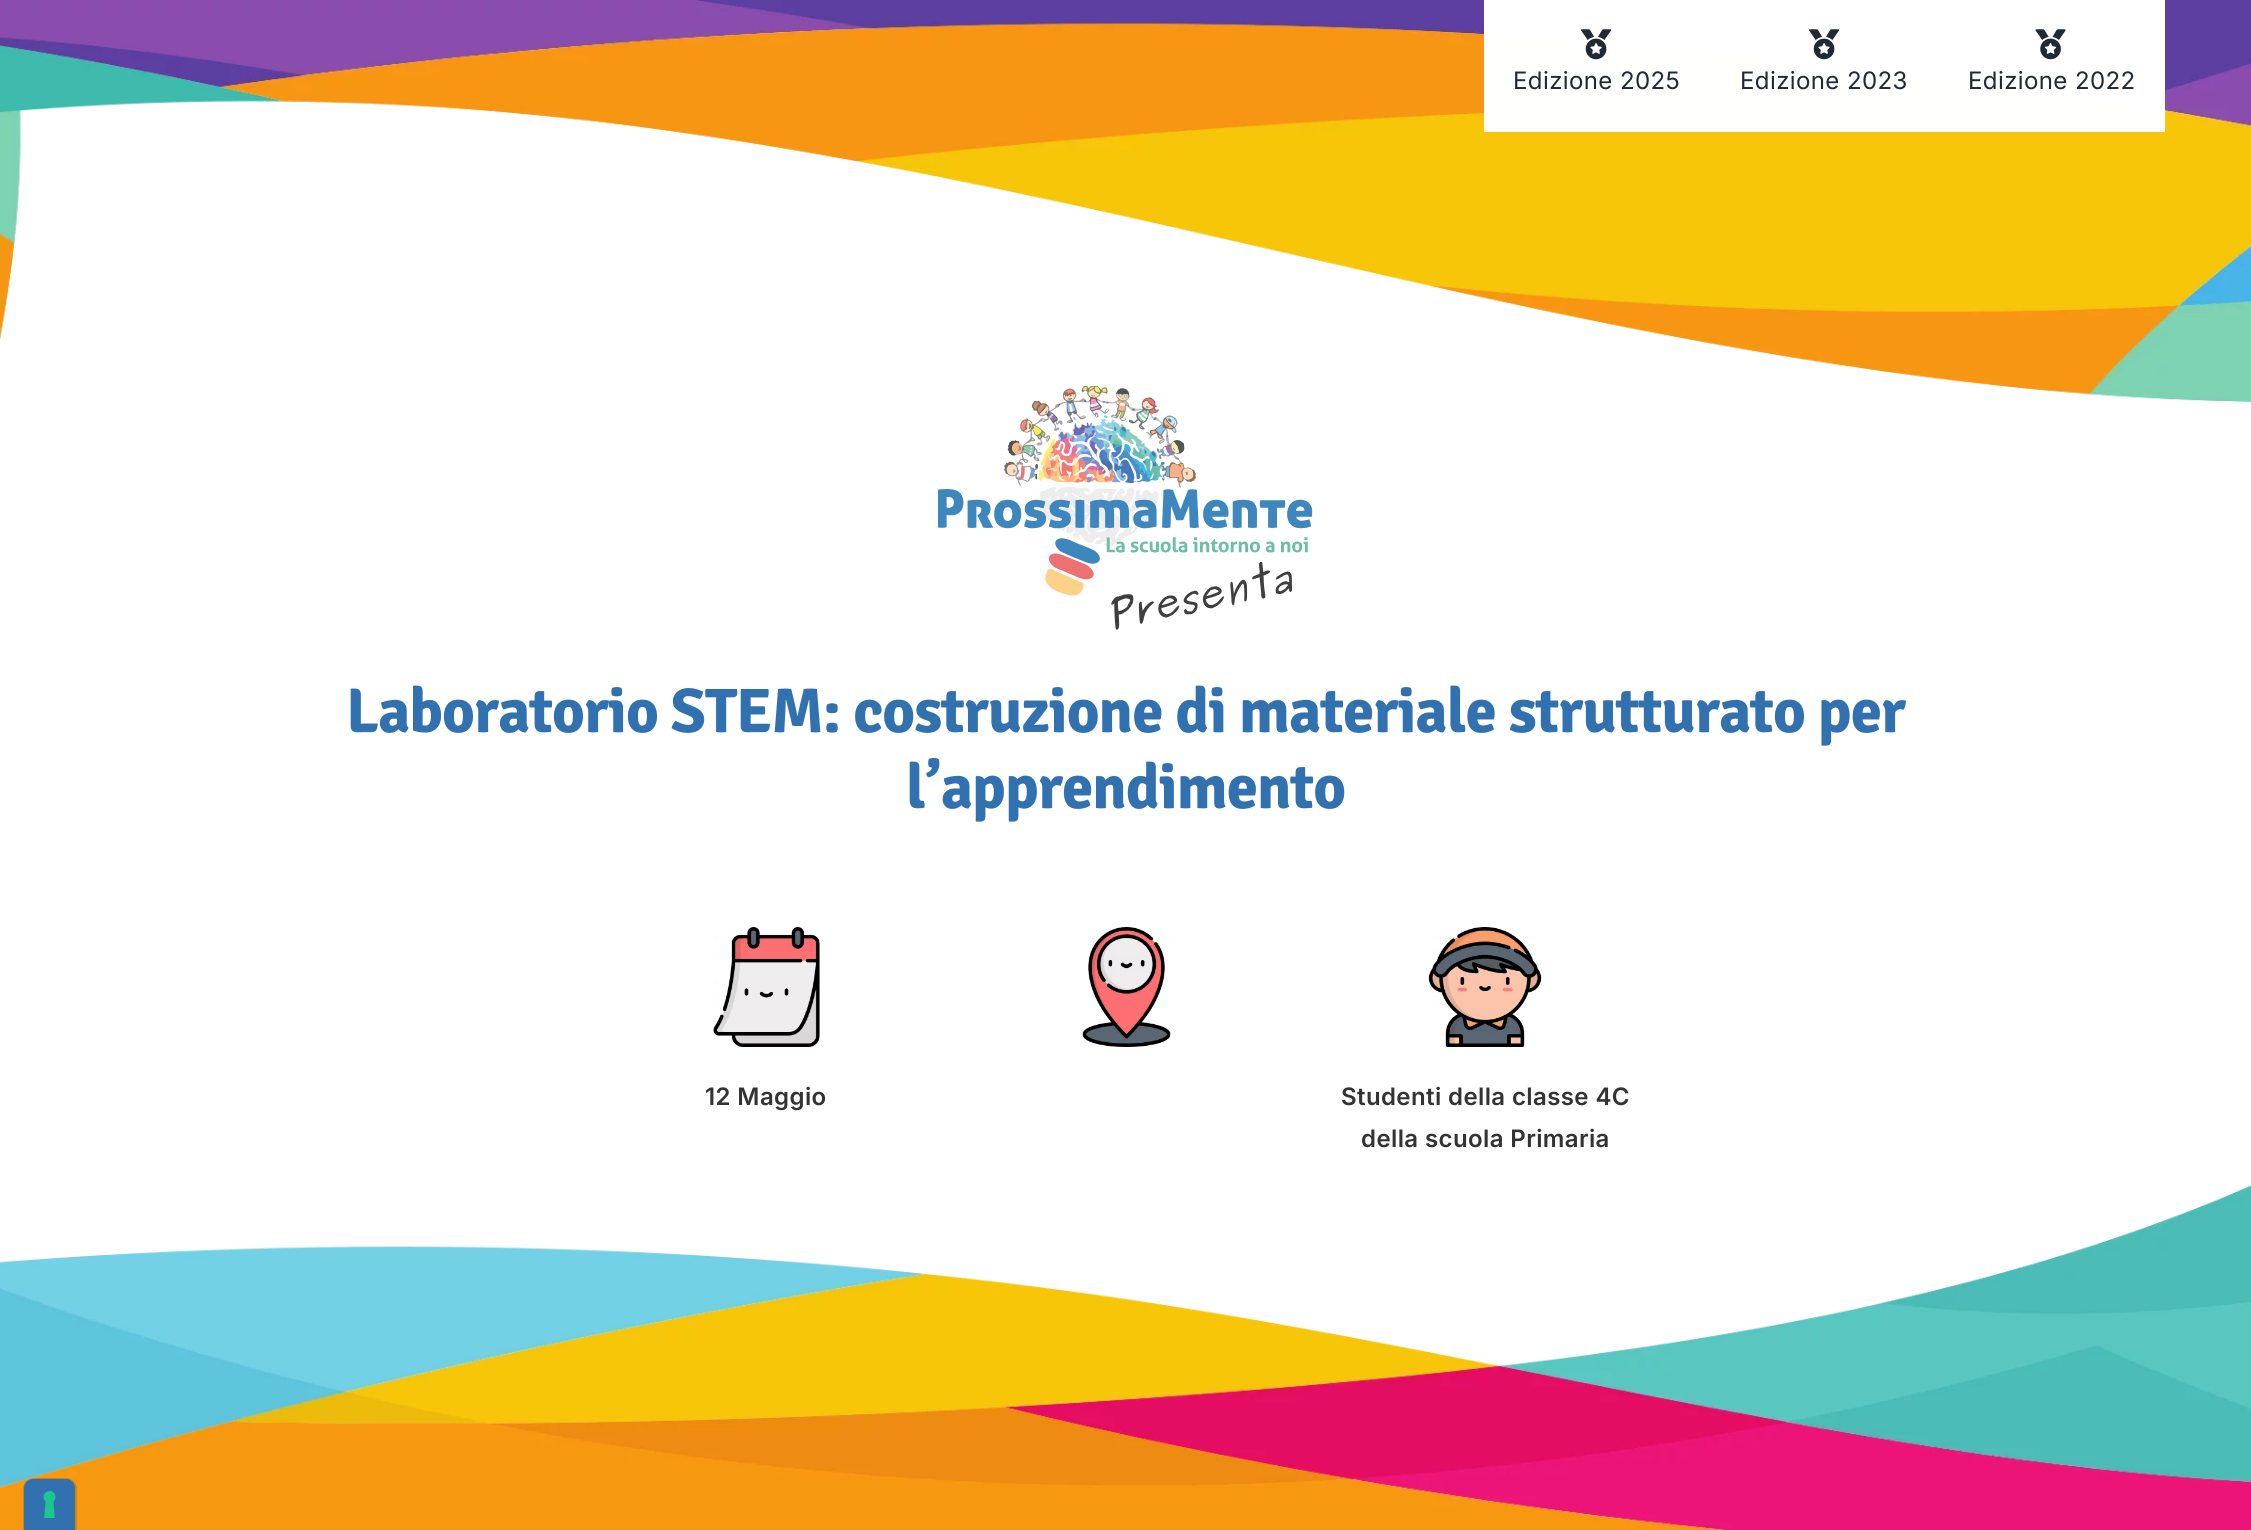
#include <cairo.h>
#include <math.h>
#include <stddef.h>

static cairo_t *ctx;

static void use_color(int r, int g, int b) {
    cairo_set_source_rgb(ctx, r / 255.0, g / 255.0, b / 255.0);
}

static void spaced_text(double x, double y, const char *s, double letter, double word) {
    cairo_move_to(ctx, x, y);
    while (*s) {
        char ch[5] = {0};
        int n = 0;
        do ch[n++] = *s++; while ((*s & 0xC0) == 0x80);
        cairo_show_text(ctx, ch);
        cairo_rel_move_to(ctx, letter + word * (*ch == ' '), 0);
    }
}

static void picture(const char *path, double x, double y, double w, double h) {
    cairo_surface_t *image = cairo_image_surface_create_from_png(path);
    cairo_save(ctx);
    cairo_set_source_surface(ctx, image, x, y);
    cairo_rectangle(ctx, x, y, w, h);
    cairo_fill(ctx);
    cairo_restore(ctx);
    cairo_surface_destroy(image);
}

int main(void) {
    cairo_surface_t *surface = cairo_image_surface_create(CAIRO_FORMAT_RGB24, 2251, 1530);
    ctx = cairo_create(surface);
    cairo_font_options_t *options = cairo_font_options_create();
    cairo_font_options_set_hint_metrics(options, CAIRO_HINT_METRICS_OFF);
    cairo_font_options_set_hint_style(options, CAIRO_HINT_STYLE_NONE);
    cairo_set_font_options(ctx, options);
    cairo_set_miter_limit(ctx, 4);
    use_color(255, 255, 255);
    cairo_paint(ctx);
    picture("img4.png", 0, 0, 2251, 1530);
    cairo_set_source_rgba(ctx, 1, 1, 1, 0.95);
    cairo_rectangle(ctx, 1484, 0, 226, 132);
    cairo_fill(ctx);
    cairo_rectangle(ctx, 1484, 0, 226, 132);
    cairo_fill(ctx);
    picture("img1.png", 1581, 29, 30, 31);
    cairo_select_font_face(ctx, "Inter", CAIRO_FONT_SLANT_NORMAL, CAIRO_FONT_WEIGHT_NORMAL);
    cairo_set_font_size(ctx, 24);
    use_color(33, 41, 52);
    spaced_text(1513, 89, "Edizione 2025", 0.4, 0);
    cairo_set_source_rgba(ctx, 1, 1, 1, 0.95);
    cairo_rectangle(ctx, 1710, 0, 228, 132);
    cairo_fill(ctx);
    cairo_rectangle(ctx, 1710, 0, 228, 132);
    cairo_fill(ctx);
    picture("img2.png", 1809, 29, 30, 31);
    use_color(33, 41, 52);
    spaced_text(1740, 89, "Edizione 2023", 0.4, 0);
    cairo_set_source_rgba(ctx, 1, 1, 1, 0.95);
    cairo_rectangle(ctx, 1938, 0, 227, 132);
    cairo_fill(ctx);
    cairo_rectangle(ctx, 1938, 0, 227, 132);
    cairo_fill(ctx);
    picture("img3.png", 2035, 29, 31, 31);
    use_color(33, 41, 52);
    spaced_text(1968, 89, "Edizione 2022", 0.4, 0);
    picture("img5.png", 938, 386, 375, 244);
    cairo_select_font_face(ctx, "Signika", CAIRO_FONT_SLANT_NORMAL, CAIRO_FONT_WEIGHT_BOLD);
    cairo_set_font_size(ctx, 63);
    use_color(49, 113, 176);
    spaced_text(346, 732, "Laboratorio STEM: costruzione di materiale strutturato per", -0.95, 0);
    spaced_text(906, 808, "l’apprendimento", -0.95, 0);
    picture("img6.png", 1082, 927, 89, 120);
    picture("img7.png", 713, 927, 107, 120);
    cairo_select_font_face(ctx, "Inter SemiBold", CAIRO_FONT_SLANT_NORMAL, CAIRO_FONT_WEIGHT_NORMAL);
    cairo_set_font_size(ctx, 24);
    use_color(51, 51, 51);
    spaced_text(705, 1105, "12 Maggio", 0.4, 0);
    picture("img8.png", 1428, 927, 114, 120);
    spaced_text(1341, 1105, "Studenti della classe 4C", 0.4, 0);
    spaced_text(1361, 1147, "della scuola Primaria", 0.4, 0);
    cairo_new_path(ctx);
    cairo_move_to(ctx, 34, 1479);
    cairo_line_to(ctx, 66, 1479);
    cairo_curve_to(ctx, 71.5, 1479, 76, 1483.5, 76, 1489);
    cairo_line_to(ctx, 76, 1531);
    cairo_line_to(ctx, 24, 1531);
    cairo_line_to(ctx, 24, 1489);
    cairo_curve_to(ctx, 24, 1483.5, 28.5, 1479, 34, 1479);
    cairo_close_path(ctx);
    cairo_set_source_rgba(ctx, 0, 0, 0, 0.15);
    cairo_stroke(ctx);
    use_color(49, 113, 176);
    cairo_new_path(ctx);
    cairo_move_to(ctx, 33, 1479);
    cairo_line_to(ctx, 66, 1479);
    cairo_curve_to(ctx, 71, 1479, 75, 1483, 75, 1488);
    cairo_line_to(ctx, 75, 1530);
    cairo_line_to(ctx, 24, 1530);
    cairo_line_to(ctx, 24, 1488);
    cairo_curve_to(ctx, 24, 1483, 28, 1479, 33, 1479);
    cairo_close_path(ctx);
    cairo_fill(ctx);
    picture("img9.png", 43, 1491, 13, 27);
    cairo_surface_write_to_png(surface, "result.png");
    cairo_font_options_destroy(options);
    cairo_destroy(ctx);
    cairo_surface_destroy(surface);
    return 0;
}
